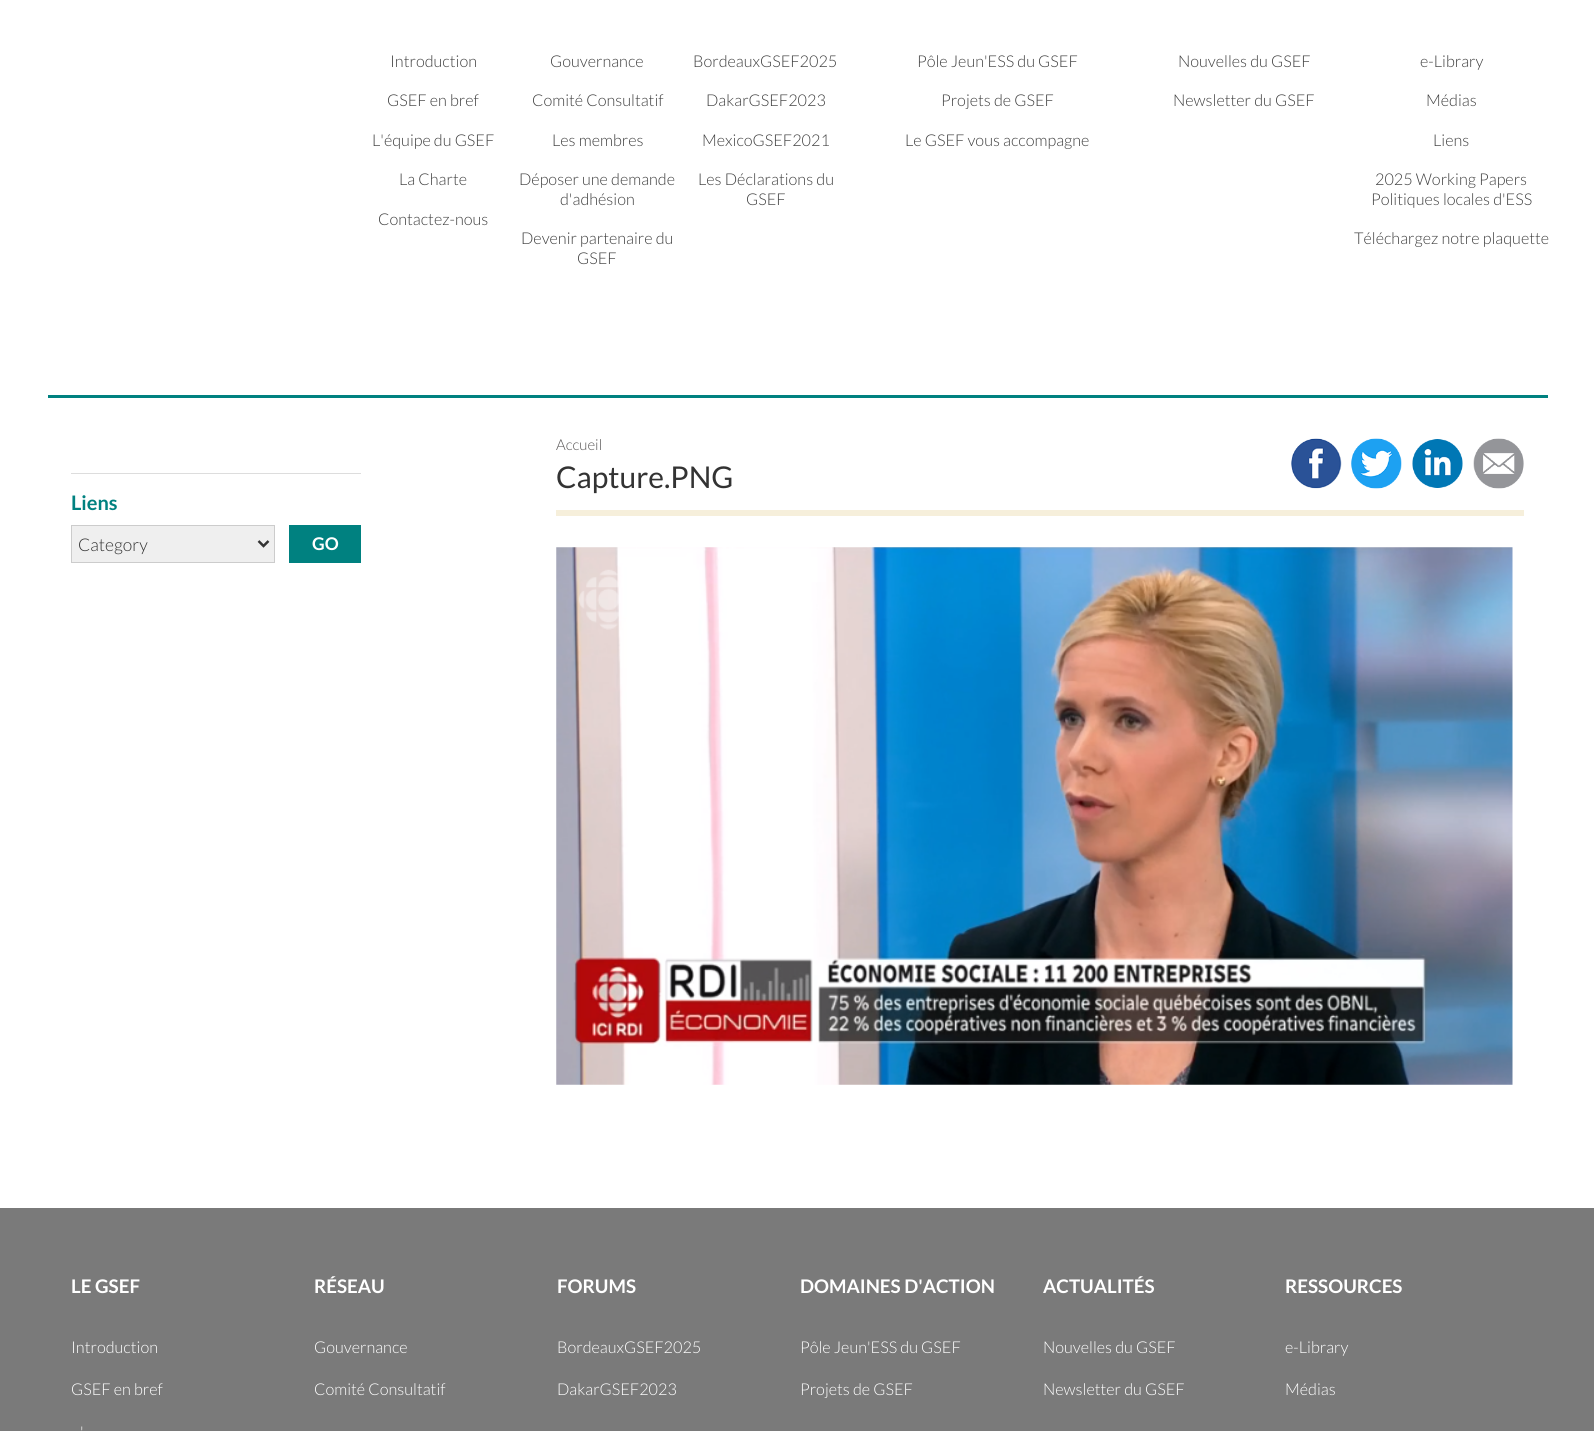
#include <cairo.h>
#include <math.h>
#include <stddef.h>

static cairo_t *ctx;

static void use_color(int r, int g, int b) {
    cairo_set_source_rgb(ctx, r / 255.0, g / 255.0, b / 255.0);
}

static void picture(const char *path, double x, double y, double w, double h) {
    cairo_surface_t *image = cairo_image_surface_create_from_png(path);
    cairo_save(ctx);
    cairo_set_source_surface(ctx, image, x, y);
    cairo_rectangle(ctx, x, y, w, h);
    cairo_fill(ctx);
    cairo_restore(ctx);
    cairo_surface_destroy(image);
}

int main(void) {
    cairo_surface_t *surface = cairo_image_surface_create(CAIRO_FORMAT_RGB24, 1594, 1431);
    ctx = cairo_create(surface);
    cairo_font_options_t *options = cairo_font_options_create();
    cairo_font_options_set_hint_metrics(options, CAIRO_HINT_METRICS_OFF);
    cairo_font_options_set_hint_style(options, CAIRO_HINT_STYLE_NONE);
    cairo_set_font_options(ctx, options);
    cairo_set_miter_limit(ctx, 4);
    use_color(255, 255, 255);
    cairo_paint(ctx);
    cairo_select_font_face(ctx, "Lato Light", CAIRO_FONT_SLANT_NORMAL, CAIRO_FONT_WEIGHT_NORMAL);
    cairo_set_font_size(ctx, 16.25);
    use_color(64, 64, 64);
    cairo_move_to(ctx, 390, 67);
    cairo_show_text(ctx, "Introduction");
    cairo_move_to(ctx, 387, 106);
    cairo_show_text(ctx, "GSEF en bref");
    cairo_move_to(ctx, 372, 146);
    cairo_show_text(ctx, "L'équipe du GSEF");
    cairo_move_to(ctx, 399, 185);
    cairo_show_text(ctx, "La Charte");
    cairo_move_to(ctx, 378, 225);
    cairo_show_text(ctx, "Contactez-nous");
    cairo_move_to(ctx, 550, 67);
    cairo_show_text(ctx, "Gouvernance");
    cairo_move_to(ctx, 532, 106);
    cairo_show_text(ctx, "Comité Consultatif");
    cairo_move_to(ctx, 552, 146);
    cairo_show_text(ctx, "Les membres");
    cairo_move_to(ctx, 519, 185);
    cairo_show_text(ctx, "Déposer une demande");
    cairo_move_to(ctx, 560, 205);
    cairo_show_text(ctx, "d'adhésion");
    cairo_move_to(ctx, 521, 244);
    cairo_show_text(ctx, "Devenir partenaire du");
    cairo_move_to(ctx, 577, 264);
    cairo_show_text(ctx, "GSEF");
    cairo_move_to(ctx, 693, 67);
    cairo_show_text(ctx, "BordeauxGSEF2025");
    cairo_move_to(ctx, 706, 106);
    cairo_show_text(ctx, "DakarGSEF2023");
    cairo_move_to(ctx, 702, 146);
    cairo_show_text(ctx, "MexicoGSEF2021");
    cairo_move_to(ctx, 698, 185);
    cairo_show_text(ctx, "Les Déclarations du");
    cairo_move_to(ctx, 746, 205);
    cairo_show_text(ctx, "GSEF");
    cairo_move_to(ctx, 917, 67);
    cairo_show_text(ctx, "Pôle Jeun'ESS du GSEF");
    cairo_move_to(ctx, 941, 106);
    cairo_show_text(ctx, "Projets de GSEF");
    cairo_move_to(ctx, 905, 146);
    cairo_show_text(ctx, "Le GSEF vous accompagne");
    cairo_move_to(ctx, 1178, 67);
    cairo_show_text(ctx, "Nouvelles du GSEF");
    cairo_move_to(ctx, 1173, 106);
    cairo_show_text(ctx, "Newsletter du GSEF");
    cairo_move_to(ctx, 1420, 67);
    cairo_show_text(ctx, "e-Library");
    cairo_move_to(ctx, 1426, 106);
    cairo_show_text(ctx, "Médias");
    cairo_move_to(ctx, 1433, 146);
    cairo_show_text(ctx, "Liens");
    cairo_move_to(ctx, 1375, 185);
    cairo_show_text(ctx, "2025 Working Papers");
    cairo_move_to(ctx, 1371, 205);
    cairo_show_text(ctx, "Politiques locales d'ESS");
    cairo_move_to(ctx, 1354, 244);
    cairo_show_text(ctx, "Téléchargez notre plaquette");
    use_color(0, 129, 128);
    cairo_rectangle(ctx, 48, 395, 1500, 3);
    cairo_fill(ctx);
    use_color(246, 239, 219);
    cairo_rectangle(ctx, 556, 510, 968, 6);
    cairo_fill(ctx);
    cairo_set_font_size(ctx, 15);
    use_color(88, 86, 86);
    cairo_move_to(ctx, 556, 450);
    cairo_show_text(ctx, "Accueil");
    picture("img1.png", 1291, 438, 51, 51);
    picture("img2.png", 1351, 438, 51, 51);
    picture("img3.png", 1412, 439, 51, 49);
    picture("img4.png", 1473, 438, 51, 51);
    cairo_select_font_face(ctx, "Lato", CAIRO_FONT_SLANT_NORMAL, CAIRO_FONT_WEIGHT_NORMAL);
    cairo_set_font_size(ctx, 30);
    use_color(51, 51, 51);
    cairo_move_to(ctx, 556, 488);
    cairo_show_text(ctx, "Capture.PNG");
    picture("img5.png", 556, 547, 957, 538);
    use_color(221, 221, 221);
    cairo_rectangle(ctx, 71, 473, 290, 1);
    cairo_fill(ctx);
    cairo_select_font_face(ctx, "Lato", CAIRO_FONT_SLANT_NORMAL, CAIRO_FONT_WEIGHT_BOLD);
    cairo_set_font_size(ctx, 20);
    use_color(0, 129, 128);
    cairo_move_to(ctx, 71, 510);
    cairo_show_text(ctx, "Liens");
    use_color(239, 239, 239);
    cairo_rectangle(ctx, 71.5, 525.5, 203, 37);
    cairo_fill_preserve(ctx);
    use_color(204, 204, 204);
    cairo_set_line_width(ctx, 1);
    cairo_stroke(ctx);
    cairo_new_path(ctx);
    cairo_move_to(ctx, 258.5, 541);
    cairo_line_to(ctx, 263.5, 546);
    cairo_line_to(ctx, 268.5, 541);
    use_color(51, 51, 51);
    cairo_set_line_width(ctx, 2.5);
    cairo_stroke(ctx);
    cairo_select_font_face(ctx, "Lato Light", CAIRO_FONT_SLANT_NORMAL, CAIRO_FONT_WEIGHT_NORMAL);
    cairo_set_font_size(ctx, 17.5);
    cairo_move_to(ctx, 78, 551);
    cairo_show_text(ctx, "Category");
    use_color(0, 129, 128);
    cairo_rectangle(ctx, 289, 525, 72, 38);
    cairo_fill(ctx);
    cairo_select_font_face(ctx, "Lato", CAIRO_FONT_SLANT_NORMAL, CAIRO_FONT_WEIGHT_BOLD);
    use_color(255, 255, 255);
    cairo_move_to(ctx, 312, 550);
    cairo_show_text(ctx, "GO");
    use_color(122, 122, 122);
    cairo_rectangle(ctx, 0, 1208, 1594, 223);
    cairo_fill(ctx);
    cairo_set_font_size(ctx, 18.75);
    use_color(255, 255, 255);
    cairo_move_to(ctx, 71, 1293);
    cairo_show_text(ctx, "LE GSEF");
    cairo_select_font_face(ctx, "Lato Light", CAIRO_FONT_SLANT_NORMAL, CAIRO_FONT_WEIGHT_NORMAL);
    cairo_set_font_size(ctx, 16.25);
    cairo_move_to(ctx, 71, 1353);
    cairo_show_text(ctx, "Introduction");
    cairo_move_to(ctx, 71, 1395);
    cairo_show_text(ctx, "GSEF en bref");
    cairo_move_to(ctx, 80, 1438);
    cairo_show_text(ctx, "'");
    cairo_select_font_face(ctx, "Lato", CAIRO_FONT_SLANT_NORMAL, CAIRO_FONT_WEIGHT_BOLD);
    cairo_set_font_size(ctx, 18.75);
    cairo_move_to(ctx, 314, 1293);
    cairo_show_text(ctx, "RÉSEAU");
    cairo_select_font_face(ctx, "Lato Light", CAIRO_FONT_SLANT_NORMAL, CAIRO_FONT_WEIGHT_NORMAL);
    cairo_set_font_size(ctx, 16.25);
    cairo_move_to(ctx, 314, 1353);
    cairo_show_text(ctx, "Gouvernance");
    cairo_move_to(ctx, 314, 1395);
    cairo_show_text(ctx, "Comité Consultatif");
    cairo_select_font_face(ctx, "Lato", CAIRO_FONT_SLANT_NORMAL, CAIRO_FONT_WEIGHT_BOLD);
    cairo_set_font_size(ctx, 18.75);
    cairo_move_to(ctx, 557, 1293);
    cairo_show_text(ctx, "FORUMS");
    cairo_select_font_face(ctx, "Lato Light", CAIRO_FONT_SLANT_NORMAL, CAIRO_FONT_WEIGHT_NORMAL);
    cairo_set_font_size(ctx, 16.25);
    cairo_move_to(ctx, 557, 1353);
    cairo_show_text(ctx, "BordeauxGSEF2025");
    cairo_move_to(ctx, 557, 1395);
    cairo_show_text(ctx, "DakarGSEF2023");
    cairo_select_font_face(ctx, "Lato", CAIRO_FONT_SLANT_NORMAL, CAIRO_FONT_WEIGHT_BOLD);
    cairo_set_font_size(ctx, 18.75);
    cairo_move_to(ctx, 800, 1293);
    cairo_show_text(ctx, "DOMAINES D'ACTION");
    cairo_select_font_face(ctx, "Lato Light", CAIRO_FONT_SLANT_NORMAL, CAIRO_FONT_WEIGHT_NORMAL);
    cairo_set_font_size(ctx, 16.25);
    cairo_move_to(ctx, 800, 1353);
    cairo_show_text(ctx, "Pôle Jeun'ESS du GSEF");
    cairo_move_to(ctx, 800, 1395);
    cairo_show_text(ctx, "Projets de GSEF");
    cairo_select_font_face(ctx, "Lato", CAIRO_FONT_SLANT_NORMAL, CAIRO_FONT_WEIGHT_BOLD);
    cairo_set_font_size(ctx, 18.75);
    cairo_move_to(ctx, 1043, 1293);
    cairo_show_text(ctx, "ACTUALITÉS");
    cairo_select_font_face(ctx, "Lato Light", CAIRO_FONT_SLANT_NORMAL, CAIRO_FONT_WEIGHT_NORMAL);
    cairo_set_font_size(ctx, 16.25);
    cairo_move_to(ctx, 1043, 1353);
    cairo_show_text(ctx, "Nouvelles du GSEF");
    cairo_move_to(ctx, 1043, 1395);
    cairo_show_text(ctx, "Newsletter du GSEF");
    cairo_select_font_face(ctx, "Lato", CAIRO_FONT_SLANT_NORMAL, CAIRO_FONT_WEIGHT_BOLD);
    cairo_set_font_size(ctx, 18.75);
    cairo_move_to(ctx, 1285, 1293);
    cairo_show_text(ctx, "RESSOURCES");
    cairo_select_font_face(ctx, "Lato Light", CAIRO_FONT_SLANT_NORMAL, CAIRO_FONT_WEIGHT_NORMAL);
    cairo_set_font_size(ctx, 16.25);
    cairo_move_to(ctx, 1285, 1353);
    cairo_show_text(ctx, "e-Library");
    cairo_move_to(ctx, 1285, 1395);
    cairo_show_text(ctx, "Médias");
    cairo_surface_write_to_png(surface, "result.png");
    cairo_font_options_destroy(options);
    cairo_destroy(ctx);
    cairo_surface_destroy(surface);
    return 0;
}
